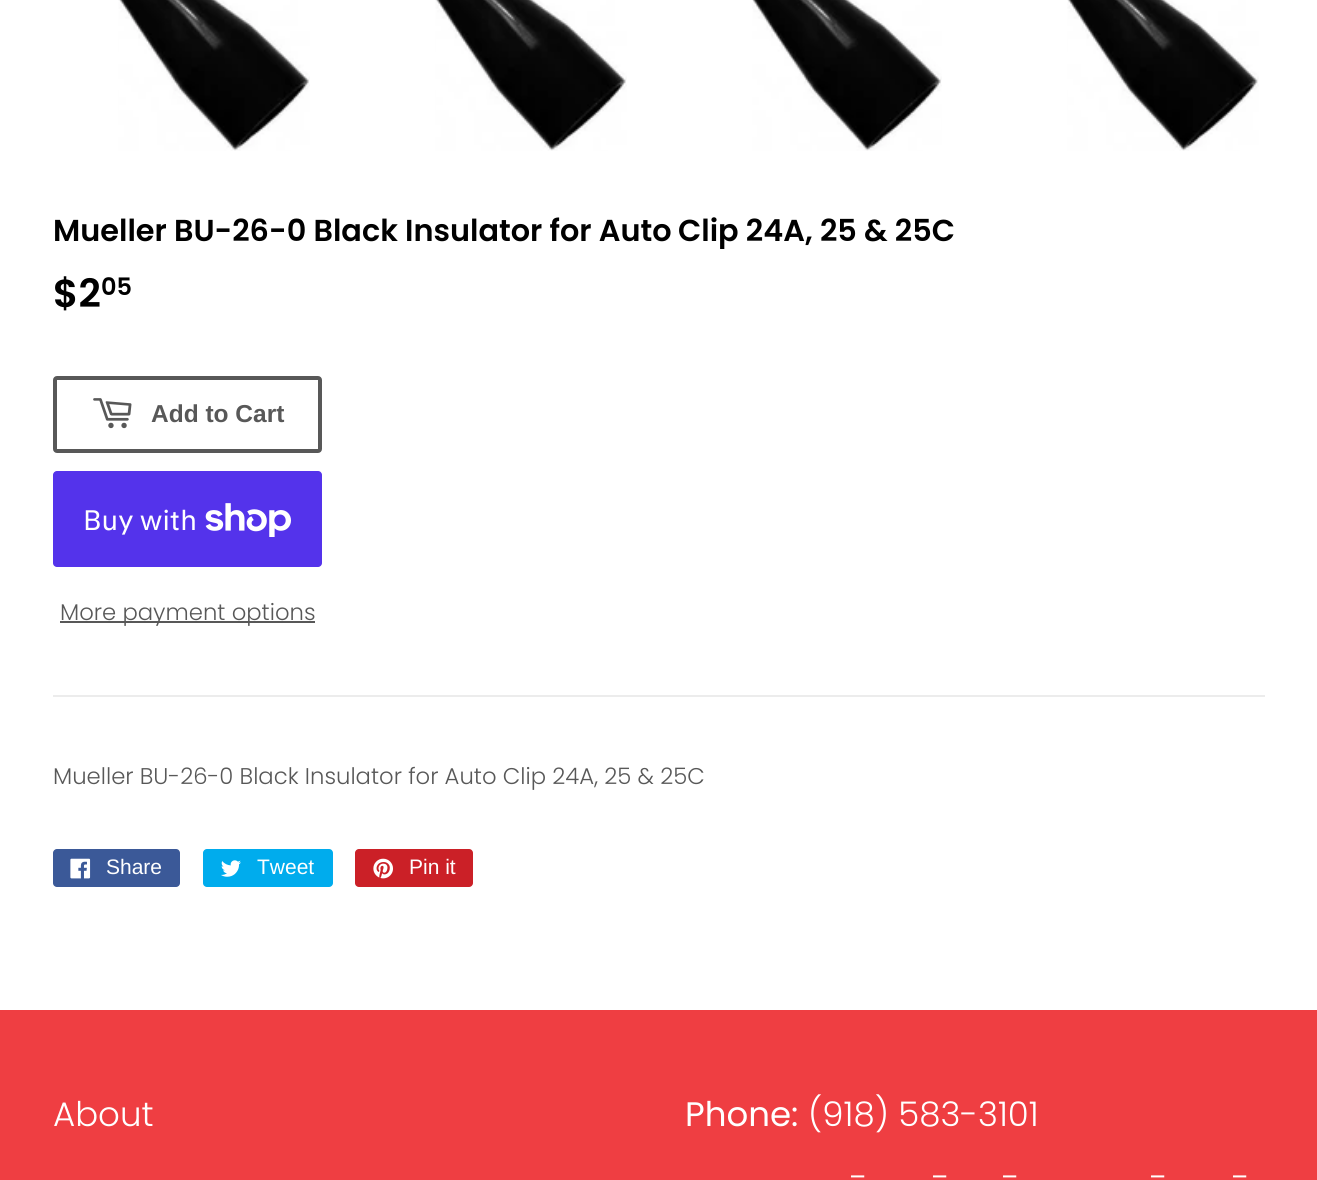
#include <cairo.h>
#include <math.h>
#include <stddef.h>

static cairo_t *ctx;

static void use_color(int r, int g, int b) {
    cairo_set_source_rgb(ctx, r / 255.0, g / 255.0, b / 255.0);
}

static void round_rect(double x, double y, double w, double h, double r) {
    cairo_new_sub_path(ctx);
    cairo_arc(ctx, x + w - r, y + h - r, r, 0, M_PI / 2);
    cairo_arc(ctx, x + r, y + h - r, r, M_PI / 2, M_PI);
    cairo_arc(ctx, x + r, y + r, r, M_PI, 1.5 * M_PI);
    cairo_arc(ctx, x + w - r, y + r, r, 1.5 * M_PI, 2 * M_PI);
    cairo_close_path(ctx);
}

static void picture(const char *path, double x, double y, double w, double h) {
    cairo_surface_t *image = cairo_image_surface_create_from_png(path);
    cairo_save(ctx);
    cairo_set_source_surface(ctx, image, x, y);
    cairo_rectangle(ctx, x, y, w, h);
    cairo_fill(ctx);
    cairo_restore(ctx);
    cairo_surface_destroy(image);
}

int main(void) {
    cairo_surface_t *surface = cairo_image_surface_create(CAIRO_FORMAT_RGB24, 1317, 1180);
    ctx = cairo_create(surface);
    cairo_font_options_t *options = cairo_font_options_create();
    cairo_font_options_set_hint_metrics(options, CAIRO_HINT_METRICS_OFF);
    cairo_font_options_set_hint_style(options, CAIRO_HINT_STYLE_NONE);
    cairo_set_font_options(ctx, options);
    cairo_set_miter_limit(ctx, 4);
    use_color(255, 255, 255);
    cairo_paint(ctx);
    picture("img1.png", 118, 0, 192, 151);
    picture("img2.png", 435, 0, 192, 151);
    picture("img3.png", 752, 0, 190, 151);
    picture("img4.png", 1067, 0, 192, 151);
    cairo_select_font_face(ctx, "Poppins SemiBold", CAIRO_FONT_SLANT_NORMAL, CAIRO_FONT_WEIGHT_NORMAL);
    cairo_set_font_size(ctx, 30.3);
    use_color(0, 0, 0);
    cairo_move_to(ctx, 53, 241);
    cairo_show_text(ctx, "Mueller BU-26-0 Black Insulator for Auto");
    cairo_move_to(ctx, 678, 241);
    cairo_show_text(ctx, "Clip 24A, 25 & 25C");
    cairo_set_font_size(ctx, 39);
    cairo_move_to(ctx, 53, 307);
    cairo_show_text(ctx, "$2");
    cairo_set_font_size(ctx, 24);
    cairo_move_to(ctx, 101, 295);
    cairo_show_text(ctx, "05");
    round_rect(55, 378, 265, 73, 2);
    use_color(88, 88, 88);
    cairo_set_line_width(ctx, 4);
    cairo_stroke(ctx);
    picture("img5.png", 93, 398, 39, 31);
    cairo_select_font_face(ctx, "Liberation Sans", CAIRO_FONT_SLANT_NORMAL, CAIRO_FONT_WEIGHT_BOLD);
    cairo_set_font_size(ctx, 24.5);
    cairo_move_to(ctx, 151, 422);
    cairo_show_text(ctx, "Add to Cart");
    use_color(84, 51, 235);
    round_rect(53, 471, 269, 96, 4);
    cairo_fill(ctx);
    cairo_select_font_face(ctx, "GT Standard", CAIRO_FONT_SLANT_NORMAL, CAIRO_FONT_WEIGHT_NORMAL);
    cairo_set_font_size(ctx, 28);
    use_color(255, 255, 255);
    cairo_move_to(ctx, 83, 530);
    cairo_show_text(ctx, "Buy with");
    picture("img6.png", 205, 503, 86, 34);
    use_color(88, 88, 88);
    cairo_rectangle(ctx, 60, 621, 255, 2);
    cairo_fill(ctx);
    cairo_select_font_face(ctx, "Poppins Light", CAIRO_FONT_SLANT_NORMAL, CAIRO_FONT_WEIGHT_NORMAL);
    cairo_set_font_size(ctx, 22.75);
    cairo_move_to(ctx, 60, 620);
    cairo_show_text(ctx, "More payment options");
    use_color(236, 236, 236);
    cairo_rectangle(ctx, 53, 695, 1212, 2);
    cairo_fill(ctx);
    use_color(88, 88, 88);
    cairo_move_to(ctx, 53, 784);
    cairo_show_text(ctx, "Mueller BU-26-0 Black Insulator for Auto Clip 24A, 25 & 25C");
    use_color(59, 89, 152);
    round_rect(53, 849, 127, 38, 4);
    cairo_fill(ctx);
    picture("img7.png", 70, 858, 21, 21);
    cairo_select_font_face(ctx, "Liberation Sans", CAIRO_FONT_SLANT_NORMAL, CAIRO_FONT_WEIGHT_NORMAL);
    cairo_set_font_size(ctx, 21);
    use_color(255, 255, 255);
    cairo_move_to(ctx, 106, 874);
    cairo_show_text(ctx, "Share");
    use_color(0, 172, 237);
    round_rect(203, 849, 130, 38, 4);
    cairo_fill(ctx);
    picture("img8.png", 221, 860, 20, 17);
    use_color(255, 255, 255);
    cairo_move_to(ctx, 257, 874);
    cairo_show_text(ctx, "Tweet");
    use_color(203, 32, 39);
    round_rect(355, 849, 118, 38, 4);
    cairo_fill(ctx);
    picture("img9.png", 373, 858, 20, 21);
    use_color(255, 255, 255);
    cairo_move_to(ctx, 409, 874);
    cairo_show_text(ctx, "Pin it");
    use_color(239, 62, 66);
    cairo_rectangle(ctx, 0, 1010, 1317, 170);
    cairo_fill(ctx);
    cairo_select_font_face(ctx, "Poppins Light", CAIRO_FONT_SLANT_NORMAL, CAIRO_FONT_WEIGHT_NORMAL);
    cairo_set_font_size(ctx, 34);
    use_color(255, 255, 255);
    cairo_move_to(ctx, 53, 1126);
    cairo_show_text(ctx, "About");
    cairo_select_font_face(ctx, "Poppins", CAIRO_FONT_SLANT_NORMAL, CAIRO_FONT_WEIGHT_NORMAL);
    cairo_move_to(ctx, 685, 1126);
    cairo_show_text(ctx, "Phone:");
    cairo_select_font_face(ctx, "Poppins Light", CAIRO_FONT_SLANT_NORMAL, CAIRO_FONT_WEIGHT_NORMAL);
    cairo_move_to(ctx, 808, 1126);
    cairo_show_text(ctx, "(918) 583-3101");
    cairo_move_to(ctx, 850, 1189);
    cairo_show_text(ctx, "-");
    cairo_move_to(ctx, 932, 1189);
    cairo_show_text(ctx, "-");
    cairo_move_to(ctx, 1002, 1189);
    cairo_show_text(ctx, "-");
    cairo_move_to(ctx, 1150, 1189);
    cairo_show_text(ctx, "-");
    cairo_move_to(ctx, 1232, 1189);
    cairo_show_text(ctx, "-");
    cairo_surface_write_to_png(surface, "result.png");
    cairo_font_options_destroy(options);
    cairo_destroy(ctx);
    cairo_surface_destroy(surface);
    return 0;
}
